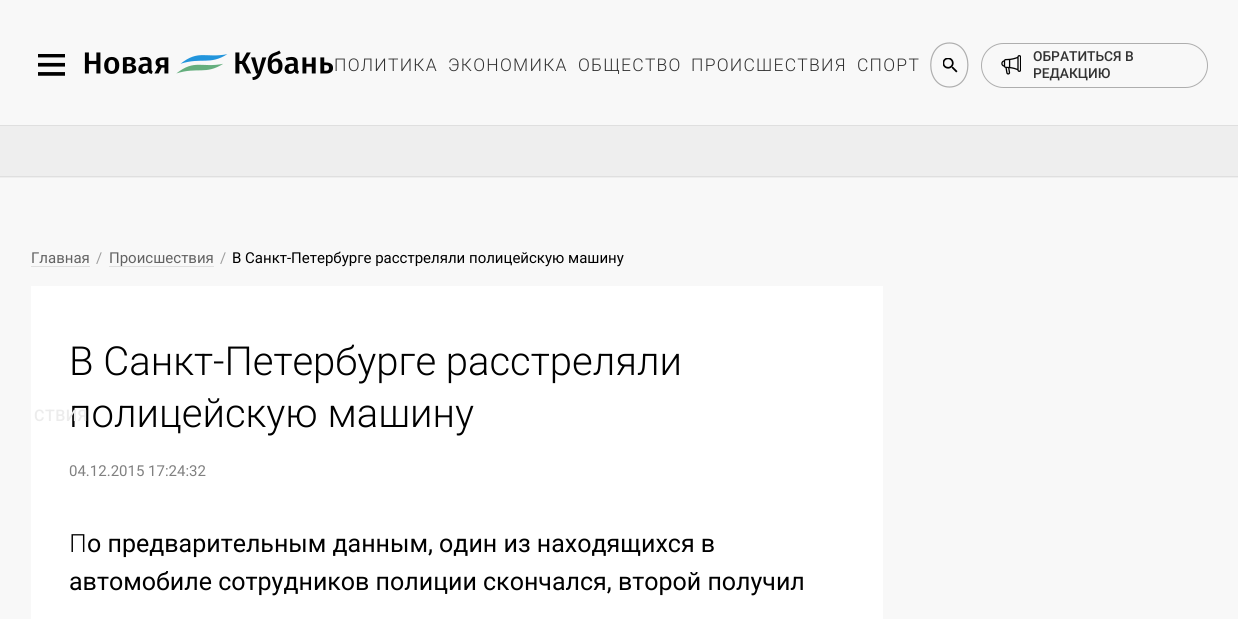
#include <cairo.h>
#include <math.h>
#include <stddef.h>

static cairo_t *ctx;

static void use_color(int r, int g, int b) {
    cairo_set_source_rgb(ctx, r / 255.0, g / 255.0, b / 255.0);
}

static void spaced_text(double x, double y, const char *s, double letter, double word) {
    cairo_move_to(ctx, x, y);
    while (*s) {
        char ch[5] = {0};
        int n = 0;
        do ch[n++] = *s++; while ((*s & 0xC0) == 0x80);
        cairo_show_text(ctx, ch);
        cairo_rel_move_to(ctx, letter + word * (*ch == ' '), 0);
    }
}

static void round_rect(double x, double y, double w, double h, double r) {
    cairo_new_sub_path(ctx);
    cairo_arc(ctx, x + w - r, y + h - r, r, 0, M_PI / 2);
    cairo_arc(ctx, x + r, y + h - r, r, M_PI / 2, M_PI);
    cairo_arc(ctx, x + r, y + r, r, M_PI, 1.5 * M_PI);
    cairo_arc(ctx, x + w - r, y + r, r, 1.5 * M_PI, 2 * M_PI);
    cairo_close_path(ctx);
}

static void picture(const char *path, double x, double y, double w, double h) {
    cairo_surface_t *image = cairo_image_surface_create_from_png(path);
    cairo_save(ctx);
    cairo_set_source_surface(ctx, image, x, y);
    cairo_rectangle(ctx, x, y, w, h);
    cairo_fill(ctx);
    cairo_restore(ctx);
    cairo_surface_destroy(image);
}

int main(void) {
    cairo_surface_t *surface = cairo_image_surface_create(CAIRO_FORMAT_RGB24, 1238, 619);
    ctx = cairo_create(surface);
    cairo_font_options_t *options = cairo_font_options_create();
    cairo_font_options_set_hint_metrics(options, CAIRO_HINT_METRICS_OFF);
    cairo_font_options_set_hint_style(options, CAIRO_HINT_STYLE_NONE);
    cairo_set_font_options(ctx, options);
    cairo_set_miter_limit(ctx, 4);
    use_color(248, 248, 248);
    cairo_paint(ctx);
    picture("img1.png", 38, 54, 27, 22);
    picture("img2.png", 84, 50, 249, 30);
    cairo_select_font_face(ctx, "Roboto Light", CAIRO_FONT_SLANT_NORMAL, CAIRO_FONT_WEIGHT_NORMAL);
    cairo_set_font_size(ctx, 17.5);
    use_color(51, 51, 51);
    spaced_text(334, 71, "ПОЛИТИКА", 1.25, 0);
    spaced_text(448, 71, "ЭКОНОМИКА", 1.25, 0);
    spaced_text(578, 71, "ОБЩЕСТВО", 1.25, 0);
    spaced_text(691, 71, "ПРОИСШЕСТВИЯ", 1.25, 0);
    spaced_text(857, 71, "СПОРТ", 1.25, 0);
    cairo_new_path(ctx);
    cairo_move_to(ctx, 949.5, 43);
    cairo_curve_to(ctx, 974, 43, 974, 87, 949.5, 87);
    cairo_curve_to(ctx, 924.5, 87, 924.5, 43, 949.5, 43);
    cairo_close_path(ctx);
    use_color(174, 174, 174);
    cairo_set_line_width(ctx, 1.2);
    cairo_stroke(ctx);
    picture("img3.png", 943, 58, 15, 15);
    round_rect(981.5, 43.5, 226, 44, 22);
    cairo_set_line_width(ctx, 1);
    cairo_stroke(ctx);
    picture("img4.png", 1001, 55, 20, 20);
    cairo_select_font_face(ctx, "Roboto Medium", CAIRO_FONT_SLANT_NORMAL, CAIRO_FONT_WEIGHT_NORMAL);
    cairo_set_font_size(ctx, 13.75);
    use_color(51, 51, 51);
    cairo_move_to(ctx, 1033, 61);
    cairo_show_text(ctx, "ОБРАТИТЬСЯ В");
    cairo_move_to(ctx, 1033, 78);
    cairo_show_text(ctx, "РЕДАКЦИЮ");
    use_color(238, 238, 238);
    cairo_rectangle(ctx, 0, 126, 1238, 52);
    cairo_fill(ctx);
    use_color(223, 223, 223);
    cairo_rectangle(ctx, 0, 125, 1238, 1);
    cairo_fill(ctx);
    cairo_rectangle(ctx, 0, 176, 1238, 1);
    cairo_fill(ctx);
    cairo_rectangle(ctx, 31, 266, 59, 1);
    cairo_fill(ctx);
    cairo_select_font_face(ctx, "Roboto", CAIRO_FONT_SLANT_NORMAL, CAIRO_FONT_WEIGHT_NORMAL);
    cairo_set_font_size(ctx, 15);
    use_color(99, 99, 99);
    cairo_move_to(ctx, 31, 263);
    cairo_show_text(ctx, "Главная");
    use_color(158, 158, 158);
    cairo_move_to(ctx, 96, 263);
    cairo_show_text(ctx, "/");
    use_color(223, 223, 223);
    cairo_rectangle(ctx, 109, 266, 105, 1);
    cairo_fill(ctx);
    use_color(99, 99, 99);
    cairo_move_to(ctx, 109, 263);
    cairo_show_text(ctx, "Проиcшествия");
    use_color(158, 158, 158);
    cairo_move_to(ctx, 220, 263);
    cairo_show_text(ctx, "/");
    use_color(0, 0, 0);
    cairo_move_to(ctx, 232, 263);
    cairo_show_text(ctx, "В Санкт-Петербурге расстреляли полицейскую машину");
    use_color(255, 255, 255);
    cairo_rectangle(ctx, 31, 286, 852, 333);
    cairo_fill(ctx);
    cairo_select_font_face(ctx, "Roboto Light", CAIRO_FONT_SLANT_NORMAL, CAIRO_FONT_WEIGHT_NORMAL);
    cairo_set_font_size(ctx, 40);
    use_color(0, 0, 0);
    cairo_move_to(ctx, 69, 375);
    cairo_show_text(ctx, "В Санкт-Петербурге расстреляли");
    cairo_move_to(ctx, 69, 427);
    cairo_show_text(ctx, "полицейскую машину");
    cairo_select_font_face(ctx, "Roboto", CAIRO_FONT_SLANT_NORMAL, CAIRO_FONT_WEIGHT_NORMAL);
    cairo_set_font_size(ctx, 15);
    use_color(128, 128, 128);
    cairo_move_to(ctx, 69, 476);
    cairo_show_text(ctx, "04.12.2015 17:24:32");
    cairo_select_font_face(ctx, "Noto Sans Light", CAIRO_FONT_SLANT_NORMAL, CAIRO_FONT_WEIGHT_NORMAL);
    cairo_set_font_size(ctx, 25);
    use_color(0, 0, 0);
    cairo_move_to(ctx, 69, 552);
    cairo_show_text(ctx, "П");
    cairo_select_font_face(ctx, "Roboto", CAIRO_FONT_SLANT_NORMAL, CAIRO_FONT_WEIGHT_NORMAL);
    cairo_move_to(ctx, 87, 552);
    cairo_show_text(ctx, "о предварительным данным, один из находящихся в");
    cairo_move_to(ctx, 69, 590);
    cairo_show_text(ctx, "автомобиле сотрудников полиции скончался, второй получил");
    cairo_select_font_face(ctx, "Roboto Medium", CAIRO_FONT_SLANT_NORMAL, CAIRO_FONT_WEIGHT_NORMAL);
    cairo_set_font_size(ctx, 16);
    use_color(236, 236, 236);
    spaced_text(34, 421, "СТВИЯ", 0.5, 0);
    cairo_surface_write_to_png(surface, "result.png");
    cairo_font_options_destroy(options);
    cairo_destroy(ctx);
    cairo_surface_destroy(surface);
    return 0;
}
